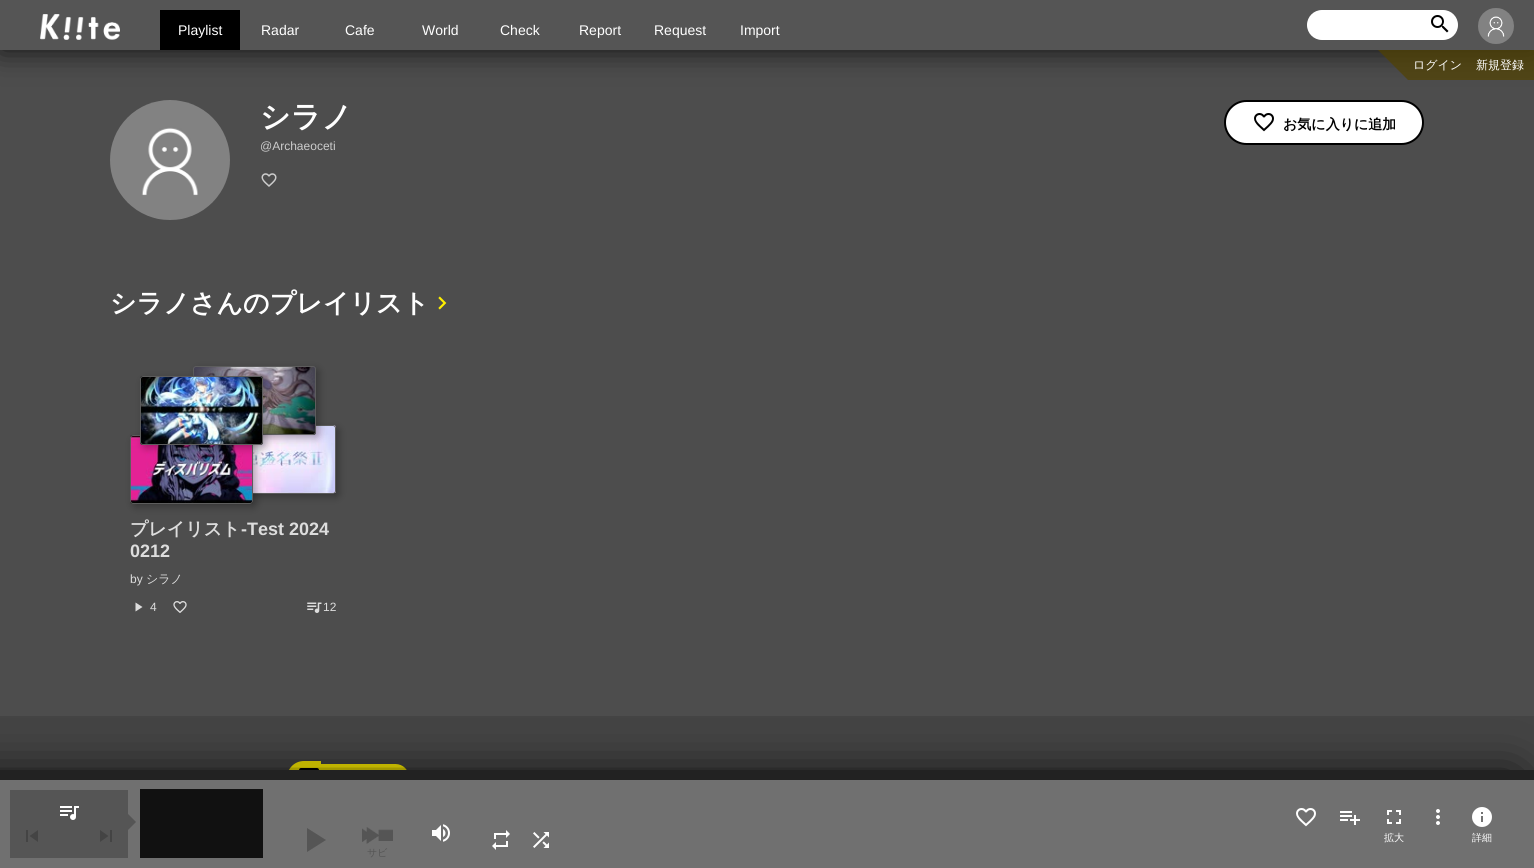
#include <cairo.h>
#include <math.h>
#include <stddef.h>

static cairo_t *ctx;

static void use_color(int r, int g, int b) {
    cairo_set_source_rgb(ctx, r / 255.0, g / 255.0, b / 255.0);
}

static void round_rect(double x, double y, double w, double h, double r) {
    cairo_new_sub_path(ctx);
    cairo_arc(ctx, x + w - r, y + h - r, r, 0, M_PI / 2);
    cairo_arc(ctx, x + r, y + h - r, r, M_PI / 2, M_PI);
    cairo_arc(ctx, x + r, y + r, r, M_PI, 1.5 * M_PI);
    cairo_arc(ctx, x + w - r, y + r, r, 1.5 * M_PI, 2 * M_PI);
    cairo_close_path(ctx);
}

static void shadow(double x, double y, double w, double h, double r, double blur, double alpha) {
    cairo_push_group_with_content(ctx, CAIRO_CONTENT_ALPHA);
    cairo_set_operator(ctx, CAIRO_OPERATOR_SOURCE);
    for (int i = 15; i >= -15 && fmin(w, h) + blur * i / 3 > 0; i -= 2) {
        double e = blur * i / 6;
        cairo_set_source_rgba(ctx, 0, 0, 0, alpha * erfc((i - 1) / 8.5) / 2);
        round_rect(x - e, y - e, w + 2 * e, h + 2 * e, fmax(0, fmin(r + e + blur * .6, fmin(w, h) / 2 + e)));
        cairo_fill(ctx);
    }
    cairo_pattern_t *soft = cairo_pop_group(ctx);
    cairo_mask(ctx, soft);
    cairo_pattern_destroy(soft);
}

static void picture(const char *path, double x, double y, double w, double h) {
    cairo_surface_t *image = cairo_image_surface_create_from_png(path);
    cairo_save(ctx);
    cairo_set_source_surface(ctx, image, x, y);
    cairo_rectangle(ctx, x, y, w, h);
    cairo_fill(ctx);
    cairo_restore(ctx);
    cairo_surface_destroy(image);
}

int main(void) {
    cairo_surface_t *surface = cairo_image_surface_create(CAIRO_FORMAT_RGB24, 1534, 868);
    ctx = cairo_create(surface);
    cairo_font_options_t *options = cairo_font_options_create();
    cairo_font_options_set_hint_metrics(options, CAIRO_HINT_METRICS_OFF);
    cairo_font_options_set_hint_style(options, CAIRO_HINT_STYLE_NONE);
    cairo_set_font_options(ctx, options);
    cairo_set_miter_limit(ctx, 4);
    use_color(77, 77, 77);
    cairo_paint(ctx);
    use_color(0, 0, 0);
    shadow(0, 0, 1534, 50, 0, 15, 0.8);
    use_color(85, 85, 85);
    cairo_rectangle(ctx, 0, 0, 1534, 50);
    cairo_fill(ctx);
    picture("img1.png", 40, 14, 80, 26);
    use_color(0, 0, 0);
    cairo_rectangle(ctx, 160, 10, 80, 40);
    cairo_fill(ctx);
    cairo_select_font_face(ctx, "Liberation Sans", CAIRO_FONT_SLANT_NORMAL, CAIRO_FONT_WEIGHT_NORMAL);
    cairo_set_font_size(ctx, 14);
    use_color(255, 255, 255);
    cairo_move_to(ctx, 178, 35);
    cairo_show_text(ctx, "Playlist");
    cairo_move_to(ctx, 261, 35);
    cairo_show_text(ctx, "Radar");
    cairo_move_to(ctx, 345, 35);
    cairo_show_text(ctx, "Cafe");
    cairo_move_to(ctx, 422, 35);
    cairo_show_text(ctx, "World");
    cairo_move_to(ctx, 500, 35);
    cairo_show_text(ctx, "Check");
    cairo_move_to(ctx, 579, 35);
    cairo_show_text(ctx, "Report");
    cairo_move_to(ctx, 654, 35);
    cairo_show_text(ctx, "Request");
    cairo_move_to(ctx, 740, 35);
    cairo_show_text(ctx, "Import");
    round_rect(1307, 10, 151, 30, 15);
    cairo_fill(ctx);
    picture("img2.png", 1431, 15, 18, 18);
    picture("img3.png", 1478, 8, 36, 36);
    cairo_set_source_rgba(ctx, 0.322, 0.259, 0.004, 0.7);
    cairo_rectangle(ctx, 1408, 50, 126, 30);
    cairo_fill(ctx);
    cairo_new_path(ctx);
    cairo_move_to(ctx, 1408, 50);
    cairo_line_to(ctx, 1408, 80);
    cairo_line_to(ctx, 1378, 50);
    cairo_close_path(ctx);
    cairo_fill(ctx);
    cairo_select_font_face(ctx, "WenQuanYi Zen Hei Medium", CAIRO_FONT_SLANT_NORMAL, CAIRO_FONT_WEIGHT_NORMAL);
    cairo_set_font_size(ctx, 12);
    use_color(255, 255, 255);
    cairo_move_to(ctx, 1413, 69);
    cairo_show_text(ctx, "ログイン");
    cairo_move_to(ctx, 1476, 69);
    cairo_show_text(ctx, "新規登録");
    picture("img4.png", 110, 100, 120, 120);
    cairo_select_font_face(ctx, "WenQuanYi Zen Hei", CAIRO_FONT_SLANT_NORMAL, CAIRO_FONT_WEIGHT_BOLD);
    cairo_set_font_size(ctx, 30);
    cairo_move_to(ctx, 260, 127);
    cairo_show_text(ctx, "シラノ");
    cairo_select_font_face(ctx, "Liberation Sans", CAIRO_FONT_SLANT_NORMAL, CAIRO_FONT_WEIGHT_NORMAL);
    cairo_set_font_size(ctx, 12);
    use_color(204, 204, 204);
    cairo_move_to(ctx, 260, 150);
    cairo_show_text(ctx, "@Archaeoceti");
    picture("img5.png", 261, 173, 16, 14);
    use_color(255, 255, 255);
    round_rect(1225, 101, 198, 43, 21.5);
    cairo_fill_preserve(ctx);
    use_color(0, 0, 0);
    cairo_stroke(ctx);
    picture("img6.png", 1254, 113, 20, 19);
    cairo_select_font_face(ctx, "WenQuanYi Zen Hei", CAIRO_FONT_SLANT_NORMAL, CAIRO_FONT_WEIGHT_BOLD);
    cairo_set_font_size(ctx, 14);
    cairo_move_to(ctx, 1283, 129);
    cairo_show_text(ctx, "お気に入りに追加");
    cairo_set_font_size(ctx, 26);
    use_color(255, 255, 255);
    cairo_move_to(ctx, 110, 312);
    cairo_show_text(ctx, "シラノさんのプレイリスト");
    picture("img7.png", 438, 296, 9, 14);
    use_color(0, 0, 0);
    shadow(216, 428, 123, 69, 3, 4, 0.3);
    picture("img11.png", 253, 425, 83, 69);
    round_rect(213.5, 425.5, 122, 68, 2.5);
    use_color(93, 93, 93);
    cairo_set_line_width(ctx, 1);
    cairo_stroke(ctx);
    use_color(0, 0, 0);
    shadow(133, 438, 123, 69, 3, 4, 0.3);
    picture("img10.png", 130, 435, 123, 69);
    round_rect(130.5, 435.5, 122, 68, 2.5);
    use_color(93, 93, 93);
    cairo_stroke(ctx);
    use_color(0, 0, 0);
    shadow(196, 369, 123, 69, 3, 4, 0.3);
    picture("img8.png", 193, 366, 123, 69);
    round_rect(193.5, 366.5, 122, 68, 2.5);
    use_color(93, 93, 93);
    cairo_stroke(ctx);
    use_color(0, 0, 0);
    shadow(143, 379, 123, 69, 3, 4, 0.3);
    picture("img9.png", 140, 376, 123, 69);
    round_rect(140.5, 376.5, 122, 68, 2.5);
    use_color(93, 93, 93);
    cairo_stroke(ctx);
    cairo_set_font_size(ctx, 18);
    use_color(221, 221, 221);
    cairo_move_to(ctx, 130, 535);
    cairo_show_text(ctx, "プレイリスト");
    cairo_select_font_face(ctx, "Liberation Sans", CAIRO_FONT_SLANT_NORMAL, CAIRO_FONT_WEIGHT_BOLD);
    cairo_move_to(ctx, 241, 535);
    cairo_show_text(ctx, "-Test 2024");
    cairo_move_to(ctx, 130, 557);
    cairo_show_text(ctx, "0212");
    cairo_select_font_face(ctx, "Liberation Sans", CAIRO_FONT_SLANT_NORMAL, CAIRO_FONT_WEIGHT_NORMAL);
    cairo_set_font_size(ctx, 12);
    cairo_move_to(ctx, 130, 583);
    cairo_show_text(ctx, "by");
    cairo_select_font_face(ctx, "WenQuanYi Zen Hei Medium", CAIRO_FONT_SLANT_NORMAL, CAIRO_FONT_WEIGHT_NORMAL);
    cairo_move_to(ctx, 146, 583);
    cairo_show_text(ctx, "シラノ");
    cairo_new_path(ctx);
    cairo_move_to(ctx, 135.5, 602.5);
    cairo_line_to(ctx, 142.5, 607);
    cairo_line_to(ctx, 135.5, 611.5);
    cairo_close_path(ctx);
    cairo_fill(ctx);
    cairo_select_font_face(ctx, "Liberation Sans", CAIRO_FONT_SLANT_NORMAL, CAIRO_FONT_WEIGHT_NORMAL);
    cairo_move_to(ctx, 150, 611);
    cairo_show_text(ctx, "4");
    picture("img12.png", 173, 601, 14, 12);
    picture("img13.png", 307, 602, 15, 11);
    cairo_move_to(ctx, 323, 611);
    cairo_show_text(ctx, "12");
    use_color(68, 68, 68);
    cairo_rectangle(ctx, 0, 716, 1534, 54);
    cairo_fill(ctx);
    use_color(255, 239, 0);
    cairo_new_path(ctx);
    cairo_move_to(ctx, 304, 761);
    cairo_line_to(ctx, 321, 761);
    cairo_line_to(ctx, 321, 795);
    cairo_line_to(ctx, 304, 795);
    cairo_curve_to(ctx, 294.5, 795, 287, 787.5, 287, 778);
    cairo_curve_to(ctx, 287, 768.5, 294.5, 761, 304, 761);
    cairo_close_path(ctx);
    cairo_fill(ctx);
    cairo_new_path(ctx);
    cairo_move_to(ctx, 321, 764);
    cairo_line_to(ctx, 395.5, 764);
    cairo_curve_to(ctx, 403, 764, 409, 770, 409, 777.5);
    cairo_curve_to(ctx, 409, 785, 403, 791, 395.5, 791);
    cairo_line_to(ctx, 321, 791);
    cairo_close_path(ctx);
    cairo_fill(ctx);
    picture("img14.png", 299, 768, 20, 2);
    use_color(0, 0, 0);
    shadow(-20, 780, 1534, 88, 0, 25, 1);
    use_color(112, 112, 112);
    cairo_rectangle(ctx, 0, 780, 1534, 88);
    cairo_fill(ctx);
    use_color(17, 17, 17);
    cairo_rectangle(ctx, 140, 789, 123, 69);
    cairo_fill(ctx);
    use_color(34, 34, 34);
    cairo_rectangle(ctx, 0, 770, 1534, 10);
    cairo_fill(ctx);
    use_color(85, 85, 85);
    cairo_rectangle(ctx, 10, 790, 118, 68);
    cairo_fill(ctx);
    picture("img15.png", 60, 806, 19, 14);
    cairo_new_path(ctx);
    cairo_move_to(ctx, 128, 830);
    cairo_line_to(ctx, 128, 814);
    cairo_line_to(ctx, 136, 822);
    cairo_close_path(ctx);
    cairo_fill(ctx);
    picture("img16.png", 26, 830, 12, 12);
    picture("img17.png", 100, 830, 12, 12);
    picture("img18.png", 1296, 808, 20, 19);
    picture("img19.png", 1340, 811, 20, 14);
    picture("img20.png", 1436, 809, 4, 16);
    picture("img21.png", 1387, 810, 14, 14);
    cairo_select_font_face(ctx, "WenQuanYi Zen Hei Medium", CAIRO_FONT_SLANT_NORMAL, CAIRO_FONT_WEIGHT_NORMAL);
    cairo_set_font_size(ctx, 10);
    use_color(255, 255, 255);
    cairo_move_to(ctx, 1384, 841);
    cairo_show_text(ctx, "拡大");
    picture("img22.png", 1472, 807, 20, 20);
    cairo_move_to(ctx, 1472, 841);
    cairo_show_text(ctx, "詳細");
    use_color(85, 85, 85);
    cairo_new_path(ctx);
    cairo_move_to(ctx, 307, 828);
    cairo_line_to(ctx, 326, 840);
    cairo_line_to(ctx, 307, 852);
    cairo_close_path(ctx);
    cairo_fill(ctx);
    picture("img23.png", 432, 824, 18, 18);
    picture("img24.png", 492, 830, 18, 20);
    picture("img25.png", 533, 832, 16, 16);
    picture("img26.png", 362, 827, 31, 17);
    cairo_move_to(ctx, 367, 856);
    cairo_show_text(ctx, "サビ");
    cairo_surface_write_to_png(surface, "result.png");
    cairo_font_options_destroy(options);
    cairo_destroy(ctx);
    cairo_surface_destroy(surface);
    return 0;
}
